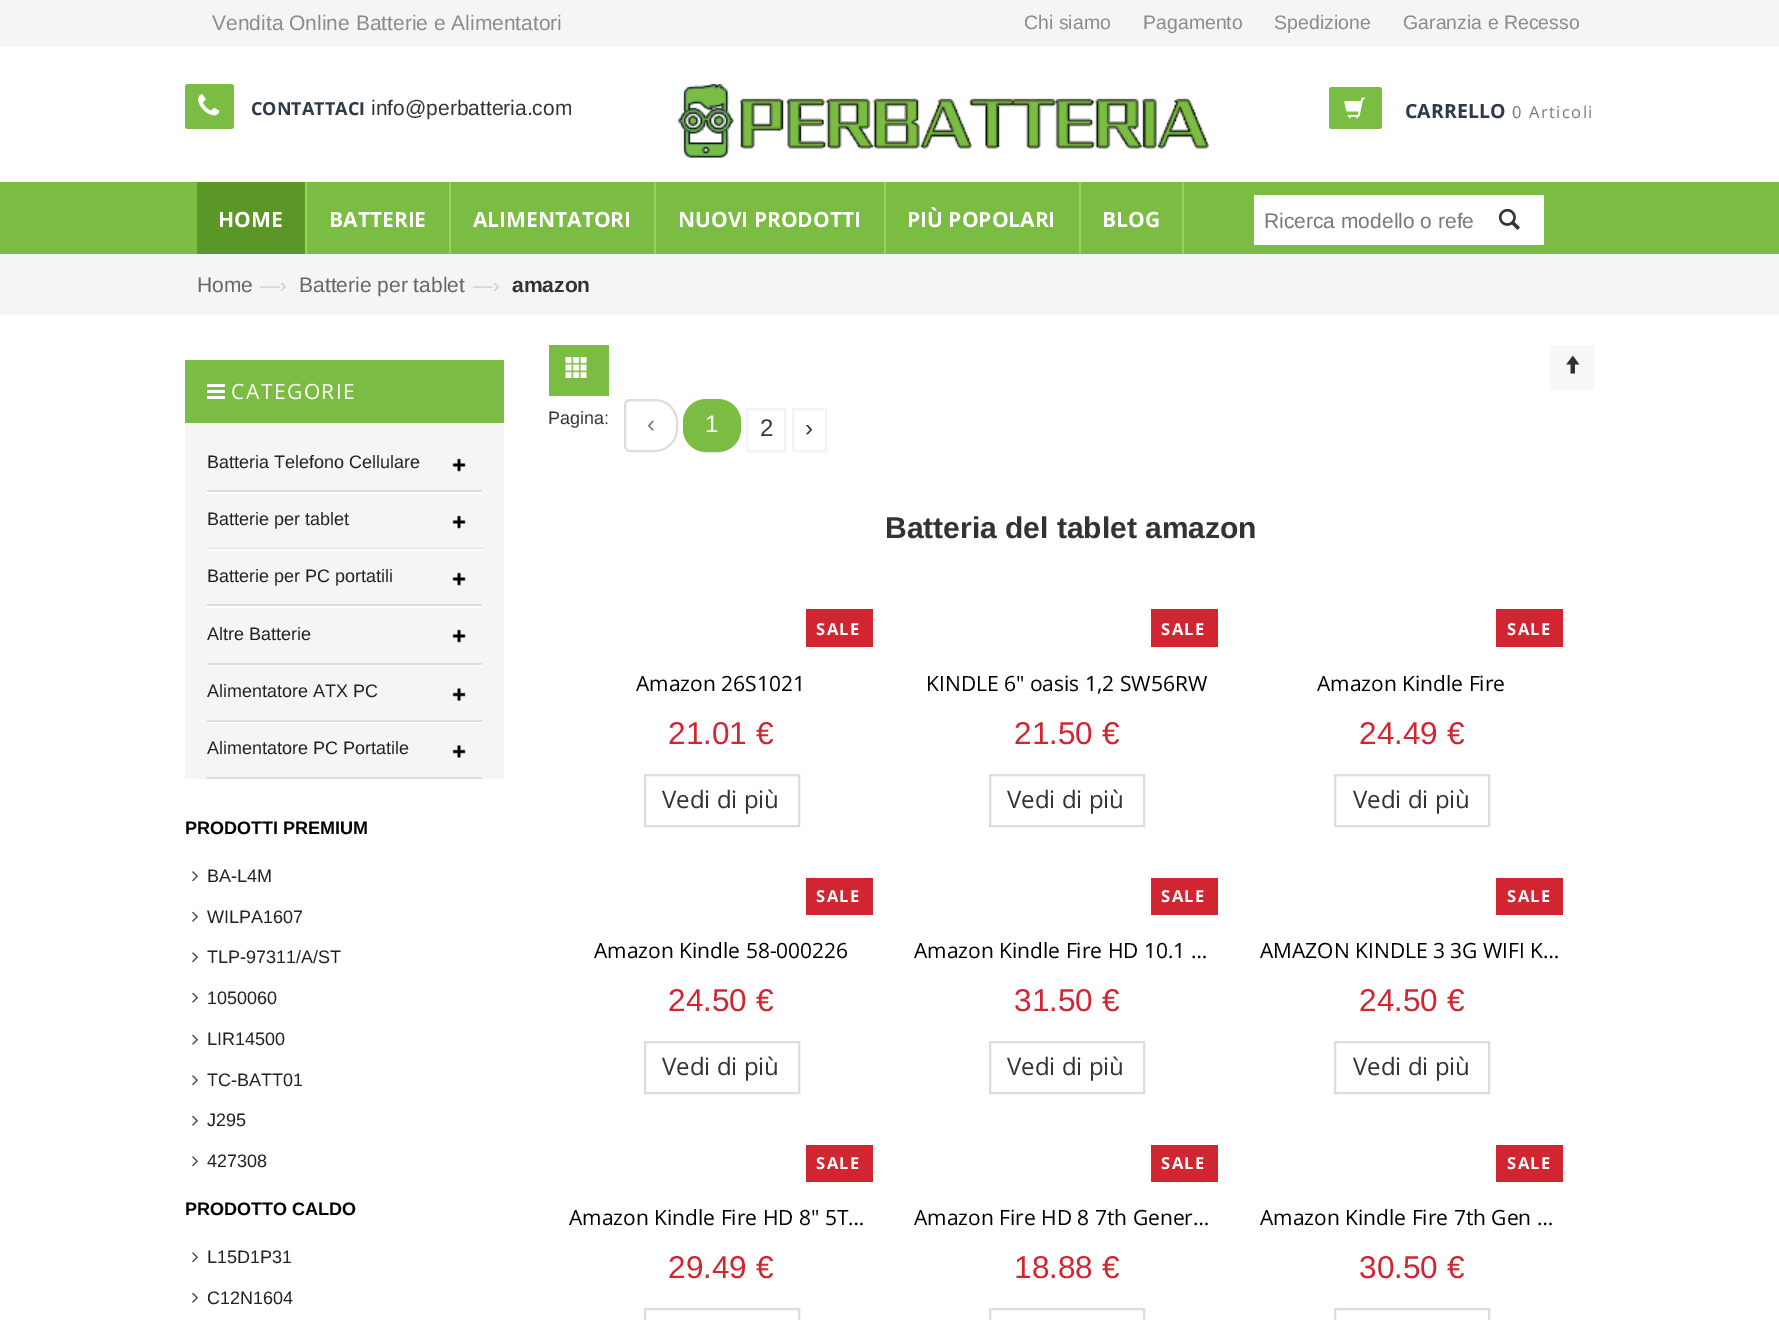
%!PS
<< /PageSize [1779 1320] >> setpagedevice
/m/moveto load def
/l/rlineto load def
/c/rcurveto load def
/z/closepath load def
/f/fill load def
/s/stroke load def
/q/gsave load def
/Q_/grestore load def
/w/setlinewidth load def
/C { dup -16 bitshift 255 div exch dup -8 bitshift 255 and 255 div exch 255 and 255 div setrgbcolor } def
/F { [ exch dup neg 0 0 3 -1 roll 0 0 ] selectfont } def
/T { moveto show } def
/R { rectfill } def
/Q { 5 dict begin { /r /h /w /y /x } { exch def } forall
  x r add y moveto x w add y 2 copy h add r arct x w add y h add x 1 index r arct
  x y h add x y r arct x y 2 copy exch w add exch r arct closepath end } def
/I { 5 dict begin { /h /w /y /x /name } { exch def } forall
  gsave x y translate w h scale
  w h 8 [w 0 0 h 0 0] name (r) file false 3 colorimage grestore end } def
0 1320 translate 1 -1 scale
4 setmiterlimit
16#FFFFFF C
0 0 1779 1320 R
16#F5F5F5 C
0 0 1779 47 R
/LiberationSans-Regular 21 F
16#8C8C8C C
(Vendita Online Batterie e Alimentatori) 212 30 T
/LiberationSans-Regular 19.5 F
(Chi siamo) 1024 29 T
(Pagamento) 1143 29 T
(Spedizione) 1274 29 T
(Garanzia e Recesso) 1403 29 T
16#7BBD42 C
185 84 49 45 3 Q f
(1.rgb) 198 94 22 22 I
/OpenSans-Bold 18 F
16#2E3A47 C
(CONTATTACI) 251 115 T
/LiberationSans-Regular 21 F
16#333333 C
(info@perbatteria.com) 371 115 T
(2.rgb) 677 84 532 74 I
16#7BBD42 C
1329 87 53 42 3 Q f
(3.rgb) 1344 97 21 22 I
/OpenSans-Bold 19.5 F
16#2E3A47 C
(CARRELLO) 1405 118 T
/OpenSans-Regular 16.5 F
16#777777 C
1512 118 m 1.5 0 (0 Articoli) ashow
16#7BBD42 C
0 182 1779 72 R
16#5B9726 C
197 182 108 72 R
16#92D756 C
305 182 2 72 R
/OpenSans-Bold 21 F
16#FFFFFF C
(HOME) 218 227 T
16#92D756 C
449 182 2 72 R
16#FFFFFF C
(BATTERIE) 329 227 T
16#92D756 C
654 182 2 72 R
16#FFFFFF C
(ALIMENTATORI) 473 227 T
16#92D756 C
884 182 2 72 R
16#FFFFFF C
(NUOVI PRODOTTI) 678 227 T
16#92D756 C
1079 182 2 72 R
16#FFFFFF C
(PIÙ POPOLARI) 907 227 T
16#92D756 C
1182 182 2 72 R
16#FFFFFF C
(BLOG) 1102 227 T
1254 195 290 50 R
/LiberationSans-Regular 21 F
16#777777 C
(Ricerca modello o refe) 1264 228 T
(4.rgb) 1498 208 22 22 I
16#F5F5F5 C
0 254 1779 61 R
16#666666 C
(Home) 197 292 T
/LiberationSans-Regular 19.5 F
16#CCCCCC C
(—›) 260 292 T
/LiberationSans-Regular 21 F
16#666666 C
(Batterie per tablet) 299 292 T
/LiberationSans-Regular 19.5 F
16#CCCCCC C
(—›) 473 292 T
/LiberationSans-Bold 21 F
16#333333 C
(amazon) 512 292 T
16#F5F5F5 C
185 423 319 356 R
16#7BBD42 C
185 360 319 63 R
(5.rgb) 207 384 18 15 I
/OpenSans-Regular 21 F
16#FFFFFF C
231 399 m 1.5 0 (CATEGORIE) ashow
207 490 m 0 4 l 275 0 l 0 -56 l 0 52 l z f
16#DDDDDD C
207 490 m 0 2 l 275 0 l 0 -55 l 0 53 l z f
/LiberationSans-Regular 18 F
16#222222 C
(Batteria Telefono Cellulare) 207 468 T
(6.rgb) 452 458 14 14 I
16#FFFFFF C
207 548 m 0 3 l 275 0 l 0 -56 l 0 53 l z f
16#DDDDDD C
207 548 m 0 1 l 275 0 l 0 -55 l 0 54 l z f
16#222222 C
(Batterie per tablet) 207 525 T
(6.rgb) 452 515 14 14 I
16#FFFFFF C
207 604 m 0 4 l 275 0 l 0 -56 l 0 52 l z f
16#DDDDDD C
207 604 m 0 2 l 275 0 l 0 -55 l 0 53 l z f
16#222222 C
(Batterie per PC portatili) 207 582 T
(6.rgb) 452 572 14 14 I
16#FFFFFF C
207 663 m 0 3 l 275 0 l 0 -57 l 0 54 l z f
16#DDDDDD C
207 663 m 0 2 l 275 0 l 0 -57 l 0 55 l z f
16#222222 C
(Altre Batterie) 207 640 T
(6.rgb) 452 629 14 14 I
16#FFFFFF C
207 720 m 0 3 l 275 0 l 0 -55 l 0 52 l z f
16#DDDDDD C
207 720 m 0 2 l 275 0 l 0 -56 l 0 54 l z f
16#222222 C
(Alimentatore ATX PC) 207 697 T
(7.rgb) 452 688 14 13 I
16#FFFFFF C
207 777 m 0 3 l 275 0 l 0 -55 l 0 52 l z f
16#DDDDDD C
207 777 m 0 2 l 275 0 l 0 -56 l 0 54 l z f
16#222222 C
(Alimentatore PC Portatile) 207 754 T
(7.rgb) 452 745 14 13 I
/LiberationSans-Bold 18 F
16#000000 C
(PRODOTTI PREMIUM) 185 834 T
(8.rgb) 192 871 6 11 I
/LiberationSans-Regular 18 F
16#222222 C
(BA-L4M) 207 882 T
(9.rgb) 192 911 6 11 I
(WILPA1607) 207 923 T
(8.rgb) 192 952 6 11 I
(TLP-97311/A/ST) 207 963 T
(9.rgb) 192 992 6 11 I
(1050060) 207 1004 T
(9.rgb) 192 1034 6 11 I
(LIR14500) 207 1045 T
(8.rgb) 192 1075 6 11 I
(TC-BATT01) 207 1086 T
(9.rgb) 192 1115 6 11 I
(J295) 207 1126 T
(8.rgb) 192 1156 6 11 I
(427308) 207 1167 T
/LiberationSans-Bold 18 F
16#000000 C
(PRODOTTO CALDO) 185 1215 T
(8.rgb) 192 1252 6 11 I
/LiberationSans-Regular 18 F
16#222222 C
(L15D1P31) 207 1263 T
(9.rgb) 192 1292 6 11 I
(C12N1604) 207 1304 T
16#7BBD42 C
549 345 60 51 R
(10.rgb) 565 357 22 21 I
16#F8F8F8 C
1550 345 45 45 R
(11.rgb) 1566 355 14 19 I
16#333333 C
(Pagina:) 548 424 T
16#DDDDDD C
2 w
630 400 m 25 0 l 12 0 22 10 22 22 c 0 7 l 0 12 -10 22 -22 22 c -25 0 l -3 0 -5 -2 -5 -5 c 0 -41 l 0 -3 2 -5 5 -5 c z s
/LiberationSans-Regular 24 F
16#777777 C
(‹) 647 432 T
16#7BBD42 C
684 400 56 51 22 Q q f Q_
s
16#FFFFFF C
(1) 705 432 T
16#F3F3F3 C
747 409 38 42 rectstroke
16#333333 C
(2) 760 436 T
16#F3F3F3 C
793 409 33 42 rectstroke
16#333333 C
(›) 805 436 T
/LiberationSans-Bold 30 F
(Batteria del tablet amazon) 885 538 T
16#D12631 C
806 609 67 38 R
/OpenSans-Bold 16.5 F
16#FFFFFF C
816 635 m 1.5 0 (SALE) ashow
/OpenSans-Regular 21 F
16#000000 C
(Amazon 26S1021) 636 691 T
/LiberationSans-Regular 31.5 F
16#D12631 C
(21.01 €) 668 744 T
16#DDDDDD C
645 775 154 51 rectstroke
/OpenSans-Regular 24 F
16#333333 C
(Vedi di più) 662 808 T
16#D12631 C
1151 609 67 38 R
/OpenSans-Bold 16.5 F
16#FFFFFF C
1161 635 m 1.5 0 (SALE) ashow
/OpenSans-Regular 21 F
16#000000 C
(KINDLE 6" oasis 1,2 SW56RW) 926 691 T
/LiberationSans-Regular 31.5 F
16#D12631 C
(21.50 €) 1014 744 T
16#DDDDDD C
990 775 154 51 rectstroke
/OpenSans-Regular 24 F
16#333333 C
(Vedi di più) 1007 808 T
16#D12631 C
1496 609 67 38 R
/OpenSans-Bold 16.5 F
16#FFFFFF C
1507 635 m 1.5 0 (SALE) ashow
/OpenSans-Regular 21 F
16#000000 C
(Amazon Kindle Fire) 1317 691 T
/LiberationSans-Regular 31.5 F
16#D12631 C
(24.49 €) 1359 744 T
16#DDDDDD C
1335 775 154 51 rectstroke
/OpenSans-Regular 24 F
16#333333 C
(Vedi di più) 1353 808 T
16#D12631 C
806 878 67 37 R
/OpenSans-Bold 16.5 F
16#FFFFFF C
816 902 m 1.5 0 (SALE) ashow
/OpenSans-Regular 21 F
16#000000 C
(Amazon Kindle 58-000226) 594 958 T
/LiberationSans-Regular 31.5 F
16#D12631 C
(24.50 €) 668 1011 T
16#DDDDDD C
645 1042 154 51 rectstroke
/OpenSans-Regular 24 F
16#333333 C
(Vedi di più) 662 1075 T
16#D12631 C
1151 878 67 37 R
/OpenSans-Bold 16.5 F
16#FFFFFF C
1161 902 m 1.5 0 (SALE) ashow
/OpenSans-Regular 21 F
16#000000 C
(Amazon Kindle Fire HD 10.1 …) 914 958 T
/LiberationSans-Regular 31.5 F
16#D12631 C
(31.50 €) 1014 1011 T
16#DDDDDD C
990 1042 154 51 rectstroke
/OpenSans-Regular 24 F
16#333333 C
(Vedi di più) 1007 1075 T
16#D12631 C
1496 878 67 37 R
/OpenSans-Bold 16.5 F
16#FFFFFF C
1507 902 m 1.5 0 (SALE) ashow
/OpenSans-Regular 21 F
16#000000 C
(AMAZON KINDLE 3 3G WIFI K…) 1260 958 T
/LiberationSans-Regular 31.5 F
16#D12631 C
(24.50 €) 1359 1011 T
16#DDDDDD C
1335 1042 154 51 rectstroke
/OpenSans-Regular 24 F
16#333333 C
(Vedi di più) 1353 1075 T
16#D12631 C
806 1145 67 37 R
/OpenSans-Bold 16.5 F
16#FFFFFF C
816 1169 m 1.5 0 (SALE) ashow
/OpenSans-Regular 21 F
16#000000 C
(Amazon Kindle Fire HD 8" 5T…) 569 1225 T
/LiberationSans-Regular 31.5 F
16#D12631 C
(29.49 €) 668 1278 T
16#DDDDDD C
645 1309 154 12 rectstroke
16#D12631 C
1151 1145 67 37 R
/OpenSans-Bold 16.5 F
16#FFFFFF C
1161 1169 m 1.5 0 (SALE) ashow
/OpenSans-Regular 21 F
16#000000 C
(Amazon Fire HD 8 7th Gener…) 914 1225 T
/LiberationSans-Regular 31.5 F
16#D12631 C
(18.88 €) 1014 1278 T
16#DDDDDD C
990 1309 154 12 rectstroke
16#D12631 C
1496 1145 67 37 R
/OpenSans-Bold 16.5 F
16#FFFFFF C
1507 1169 m 1.5 0 (SALE) ashow
/OpenSans-Regular 21 F
16#000000 C
(Amazon Kindle Fire 7th Gen …) 1260 1225 T
/LiberationSans-Regular 31.5 F
16#D12631 C
(30.50 €) 1359 1278 T
16#DDDDDD C
1335 1309 154 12 rectstroke
showpage
